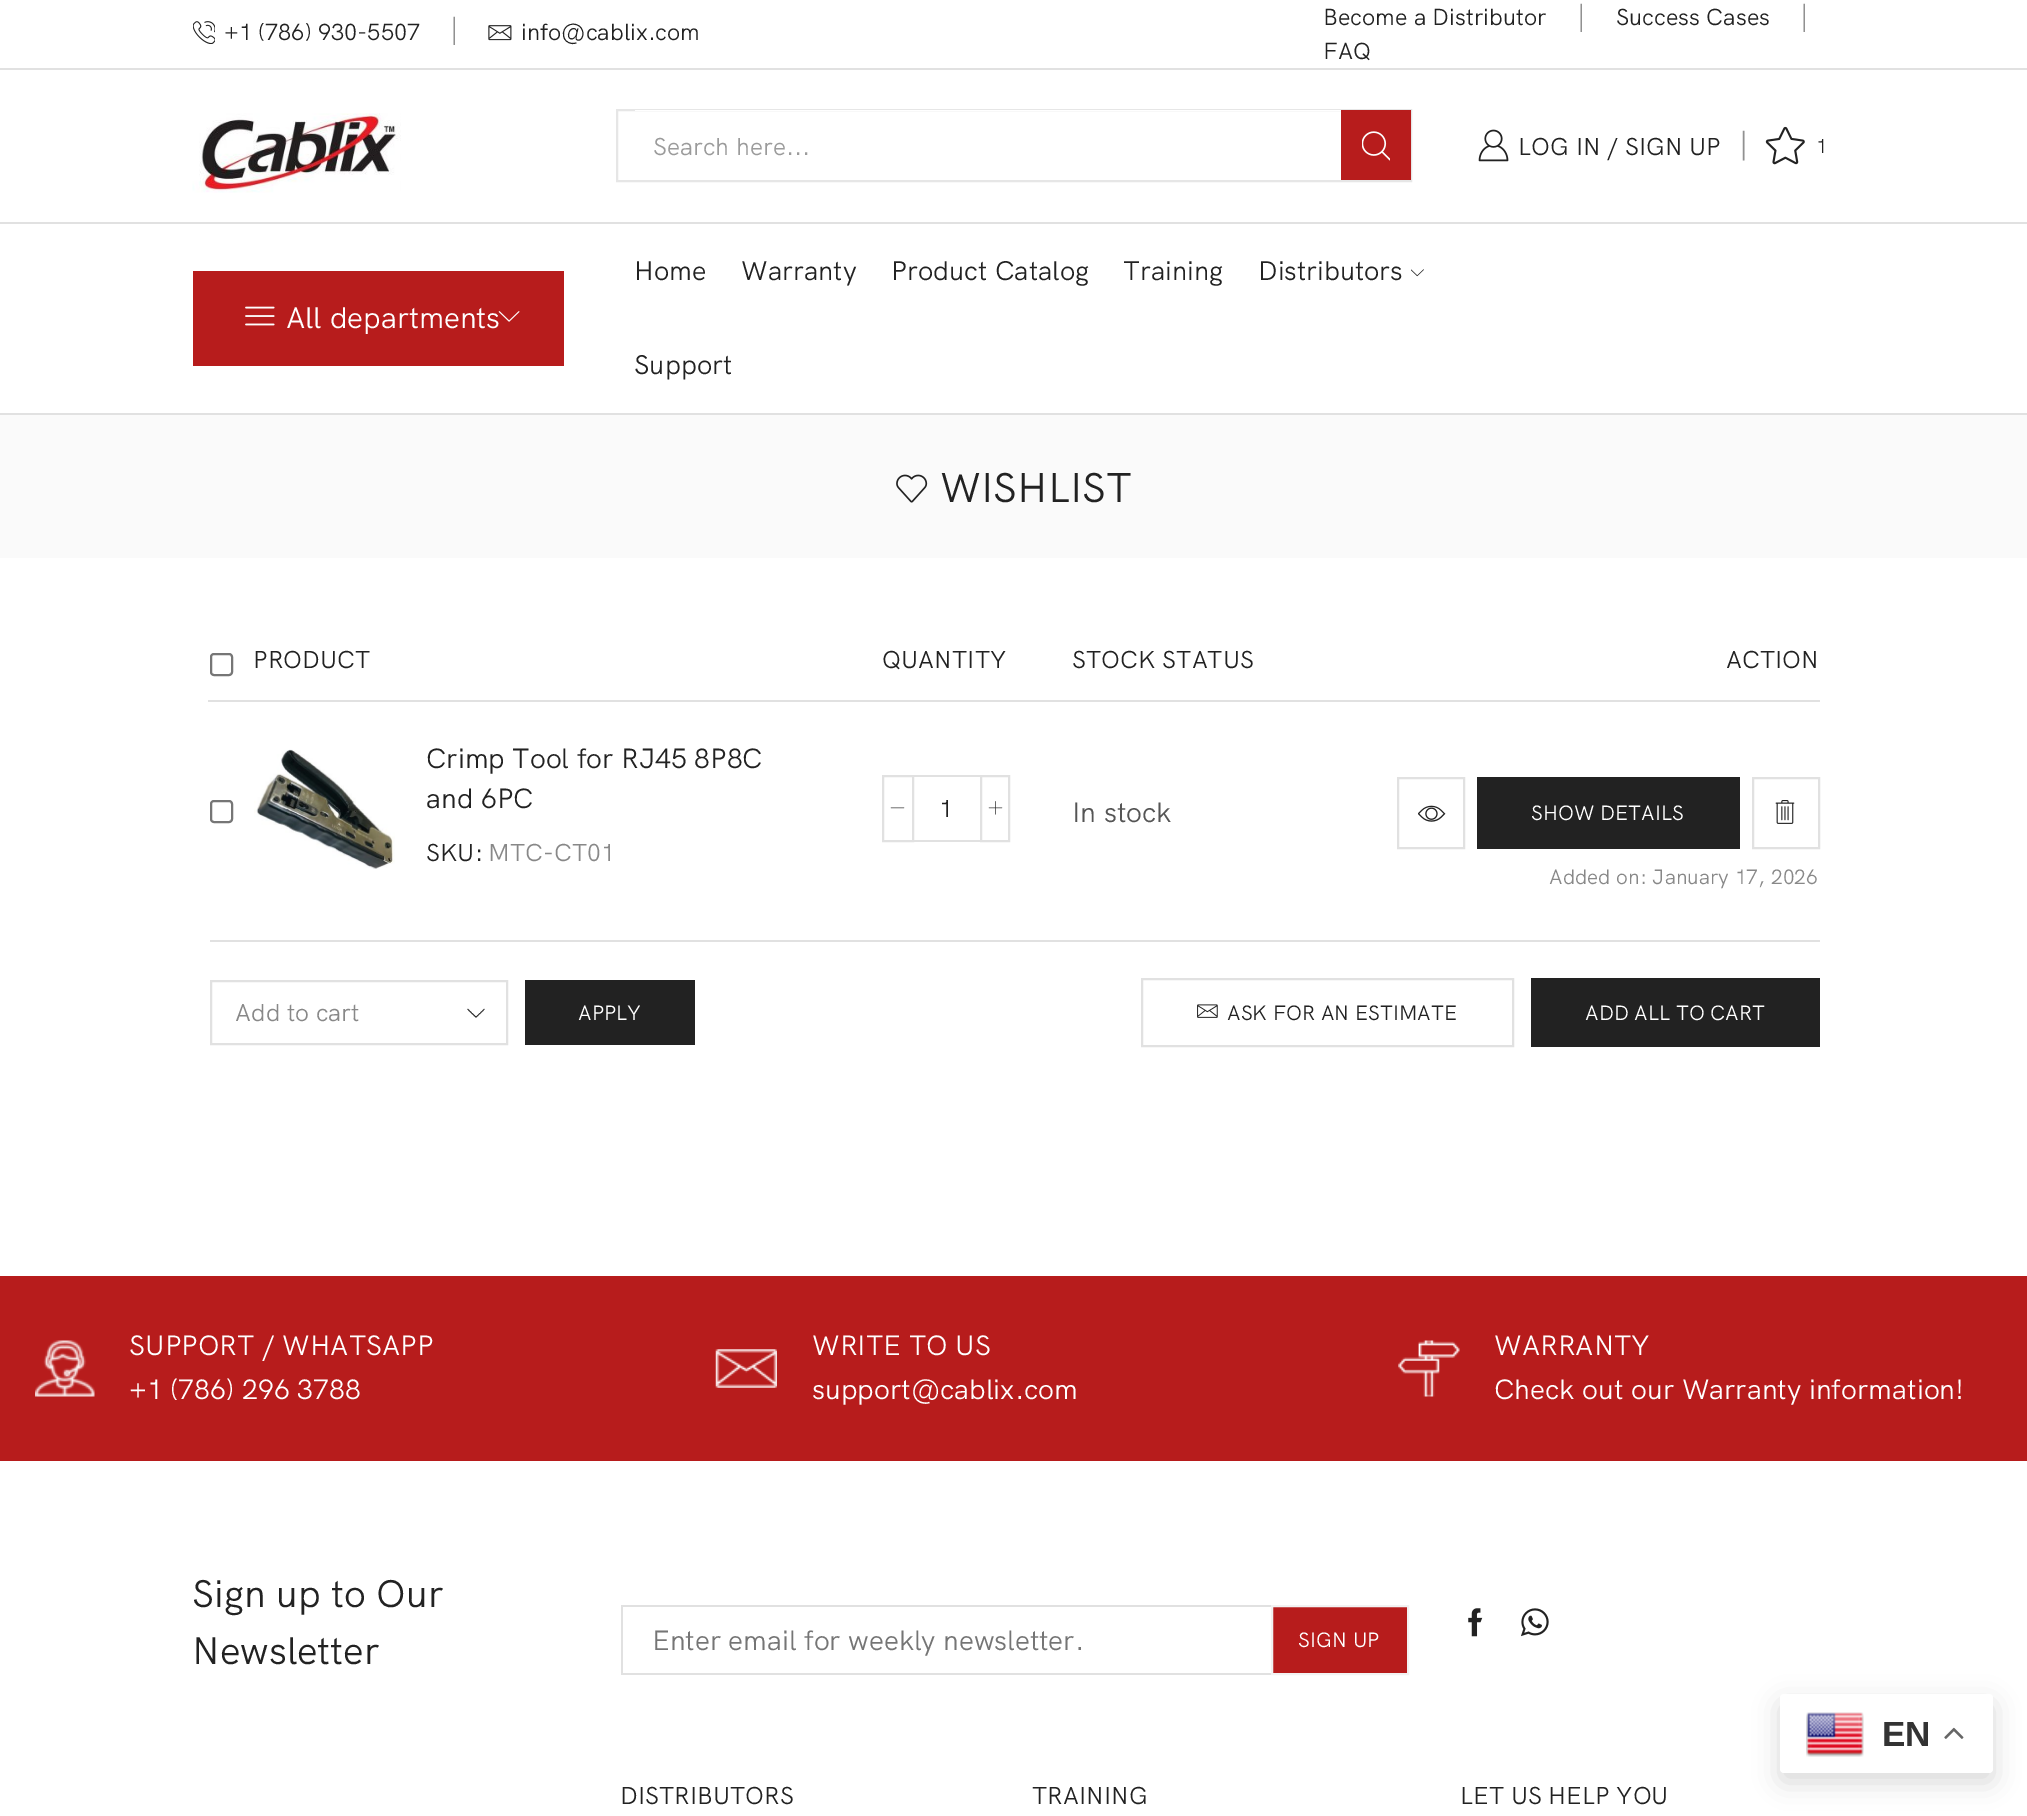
%!PS
<< /PageSize [2027 1816] /PageUsesTransparency true >> setpagedevice
/m/moveto load def
/l/rlineto load def
/z/closepath load def
/f/fill load def
/s/stroke load def
/q/gsave load def
/Q_/grestore load def
/w/setlinewidth load def
/C { dup -16 bitshift 255 div exch dup -8 bitshift 255 and 255 div exch 255 and 255 div setrgbcolor } def
/F { [ exch dup neg 0 0 3 -1 roll 0 0 ] selectfont } def
/T { moveto show } def
/R { rectfill } def
/A { dup .setfillconstantalpha .setstrokeconstantalpha } def
/Q { 5 dict begin { /r /h /w /y /x } { exch def } forall
  x r add y moveto x w add y 2 copy h add r arct x w add y h add x 1 index r arct
  x y h add x y r arct x y 2 copy exch w add exch r arct closepath end } def
/S { 12 dict begin { /a /b /q /h /w /y /x } { exch def } forall gsave /was 0 def
  9 -2 -9 { dup b mul 4 div /e exch def 1 sub .425 mul 2.718 exch exp 1 add a .99 .min exch div /now exch def
    1 1 now sub 1 was sub div sub A /was now def
    w h .min e 2 mul add 0 gt { x e sub y e sub w e 2 mul add h e 2 mul add
      q e add b .6 mul add w h .min 2 div e add .min 0 .max Q fill } if } for grestore end } def
/I { 5 dict begin { /h /w /y /x /name } { exch def } forall
  gsave x y translate w h scale
  w h 8 [w 0 0 h 0 0] name (r) file false 3 colorimage grestore end } def
0 .pushpdf14devicefilter
0 1816 translate 1 -1 scale
4 setmiterlimit
16#FFFFFF C
0 0 2027 1816 R
16#E1E1E1 C
0 68 2027 2 R
(1.rgb) 193 21 22 23 I
/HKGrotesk-Regular 23.25 F
16#222222 C
(+1 \(786\) 930-5507) 224 40 T
/LiberationSerif-Regular 23.25 F
16#919191 C
(│) 446 38 T
(2.rgb) 488 25 24 16 I
/HKGrotesk-Regular 23.25 F
16#222222 C
(info@cablix.com) 521 40 T
(Become a Distributor) 1323 25 T
/LiberationSerif-Regular 23.25 F
16#919191 C
(│) 1573 25 T
/HKGrotesk-Regular 23.25 F
16#222222 C
(Success Cases) 1616 25 T
/LiberationSerif-Regular 23.25 F
16#919191 C
(│) 1796 25 T
/HKGrotesk-Regular 23.25 F
16#222222 C
(FAQ) 1323 59 T
(3.rgb) 192 113 209 80 I
16#E6E6E6 C
2 w
617 110 794 71 rectstroke
16#FFFFFF C
635 110 706 1 R
/HKGrotesk-Regular 24.5 F
16#9B9B9B C
(Search here...) 653 155 T
16#B71C1C C
1341 110 70 70 R
(4.rgb) 1362 131 28 30 I
(5.rgb) 1478 129 31 33 I
16#222222 C
(LOG IN / SIGN UP) 1518 155 T
/LiberationSerif-Regular 24.5 F
16#919191 C
(│) 1735 153 T
(6.rgb) 1765 126 40 39 I
/HKGrotesk-Regular 20 F
16#222222 C
(1) 1816 153 T
16#E1E1E1 C
0 222 2027 2 R
0 413 2027 2 R
16#B71C1C C
193 271 371 95 R
(7.rgb) 245 306 30 20 I
/HKGrotesk-Regular 29.75 F
16#FFFFFF C
(All departments) 286 328 T
(8.rgb) 498 311 22 11 I
/HKGrotesk-Regular 27 F
16#222222 C
(Home) 634 280 T
(Warranty) 741 280 T
(Product Catalog) 891 280 T
(Training) 1123 280 T
(Distributors) 1258 280 T
(9.rgb) 1411 269 13 8 I
(Support) 634 374 T
16#FAFAFA C
0 415 2027 143 R
(10.rgb) 896 474 32 29 I
/HKGrotesk-Regular 41.5 F
16#222222 C
(WISHLIST) 940 502 T
16#E1E1E1 C
208 700 1612 2 R
16#767676 C
211 654 21 21 3 Q s
/HKGrotesk-Regular 24.5 F
16#222222 C
(PRODUCT) 253 668 T
(QUANTITY) 882 668 T
(STOCK STATUS) 1072 668 T
(ACTION) 1726 668 T
16#767676 C
211 801 21 21 3 Q s
(11.rgb) 254 749 141 120 I
/HKGrotesk-Regular 27.9 F
16#222222 C
(Crimp Tool for RJ45 8P8C) 426 768 T
(and 6PC) 426 808 T
/HKGrotesk-Regular 24.5 F
(SKU:) 426 861 T
16#888888 C
(MTC-CT01) 488 861 T
16#E1E1E1 C
883 776 30 65 rectstroke
(12.rgb) 890 807 15 2 I
914 775 66 2 R
914 840 66 2 R
16#222222 C
(1) 939 817 T
16#E1E1E1 C
981 776 28 65 rectstroke
(13.rgb) 988 801 15 14 I
/HKGrotesk-Regular 28 F
16#555555 C
(In stock) 1072 822 T
16#E1E1E1 C
1398 778 66 70 rectstroke
(14.rgb) 1418 805 28 17 I
16#222222 C
1477 777 263 72 R
/HKGrotesk-Regular 20.75 F
16#FFFFFF C
(SHOW DETAILS) 1531 820 T
16#E1E1E1 C
1753 778 66 70 rectstroke
(15.rgb) 1775 800 20 24 I
16#888888 C
(Added on: January 17, 2026) 1549 884 T
16#E1E1E1 C
210 940 1610 2 R
(16.rgb) 467 1008 18 10 I
211 981 296 63 rectstroke
/HKGrotesk-Regular 24.5 F
16#888888 C
(Add to cart) 235 1021 T
16#222222 C
525 980 170 65 R
/HKGrotesk-Regular 20.75 F
16#FFFFFF C
(APPLY) 578 1020 T
16#E1E1E1 C
1142 979 371 67 rectstroke
(17.rgb) 1197 1004 21 14 I
16#222222 C
(ASK FOR AN ESTIMATE) 1227 1020 T
1531 978 289 69 R
16#FFFFFF C
(ADD ALL TO CART) 1585 1020 T
16#B71C1C C
0 1276 2027 185 R
(18.rgb) 35 1340 60 57 I
/HKGrotesk-Regular 28 F
16#FFFFFF C
(SUPPORT / WHATSAPP) 129 1355 T
(+1 \(786\) 296 3788) 129 1399 T
(19.rgb) 715 1349 62 39 I
(WRITE TO US) 812 1355 T
(support@cablix.com) 812 1399 T
(20.rgb) 1398 1340 62 57 I
(WARRANTY) 1494 1355 T
(Check out our Warranty information!) 1494 1399 T
/HKGrotesk-Regular 38.5 F
16#222222 C
(Sign up to Our) 192 1607 T
(Newsletter) 192 1664 T
(21.rgb) 1468 1608 15 29 I
(22.rgb) 1521 1608 28 29 I
16#E1E1E1 C
621 1605 650 2 R
621 1673 650 2 R
621 1605 2 70 R
/HKGrotesk-Regular 27.9 F
16#757575 C
(Enter email for weekly newsletter.) 652 1650 T
16#B71C1C C
1272 1606 m 136 0 l 0 68 l -136 0 l z q f Q_
16#F2F2F2 C
s
/HKGrotesk-Regular 20.75 F
16#FFFFFF C
(SIGN UP) 1298 1647 T
/HKGrotesk-Regular 24.5 F
16#222222 C
(DISTRIBUTORS) 620 1804 T
(TRAINING) 1032 1804 T
(LET US HELP YOU) 1460 1804 T
16#000000 C
1780 1703 213 79 4 13 .15 S
16#FFFFFF C
1780 1694 213 79 4 Q f
(23.rgb) 1806 1712 58 45 I
/LiberationSans-Bold 35 F
16#333333 C
(EN) 1882 1746 T
(24.rgb) 1944 1727 20 12 I
.poppdf14devicefilter showpage
